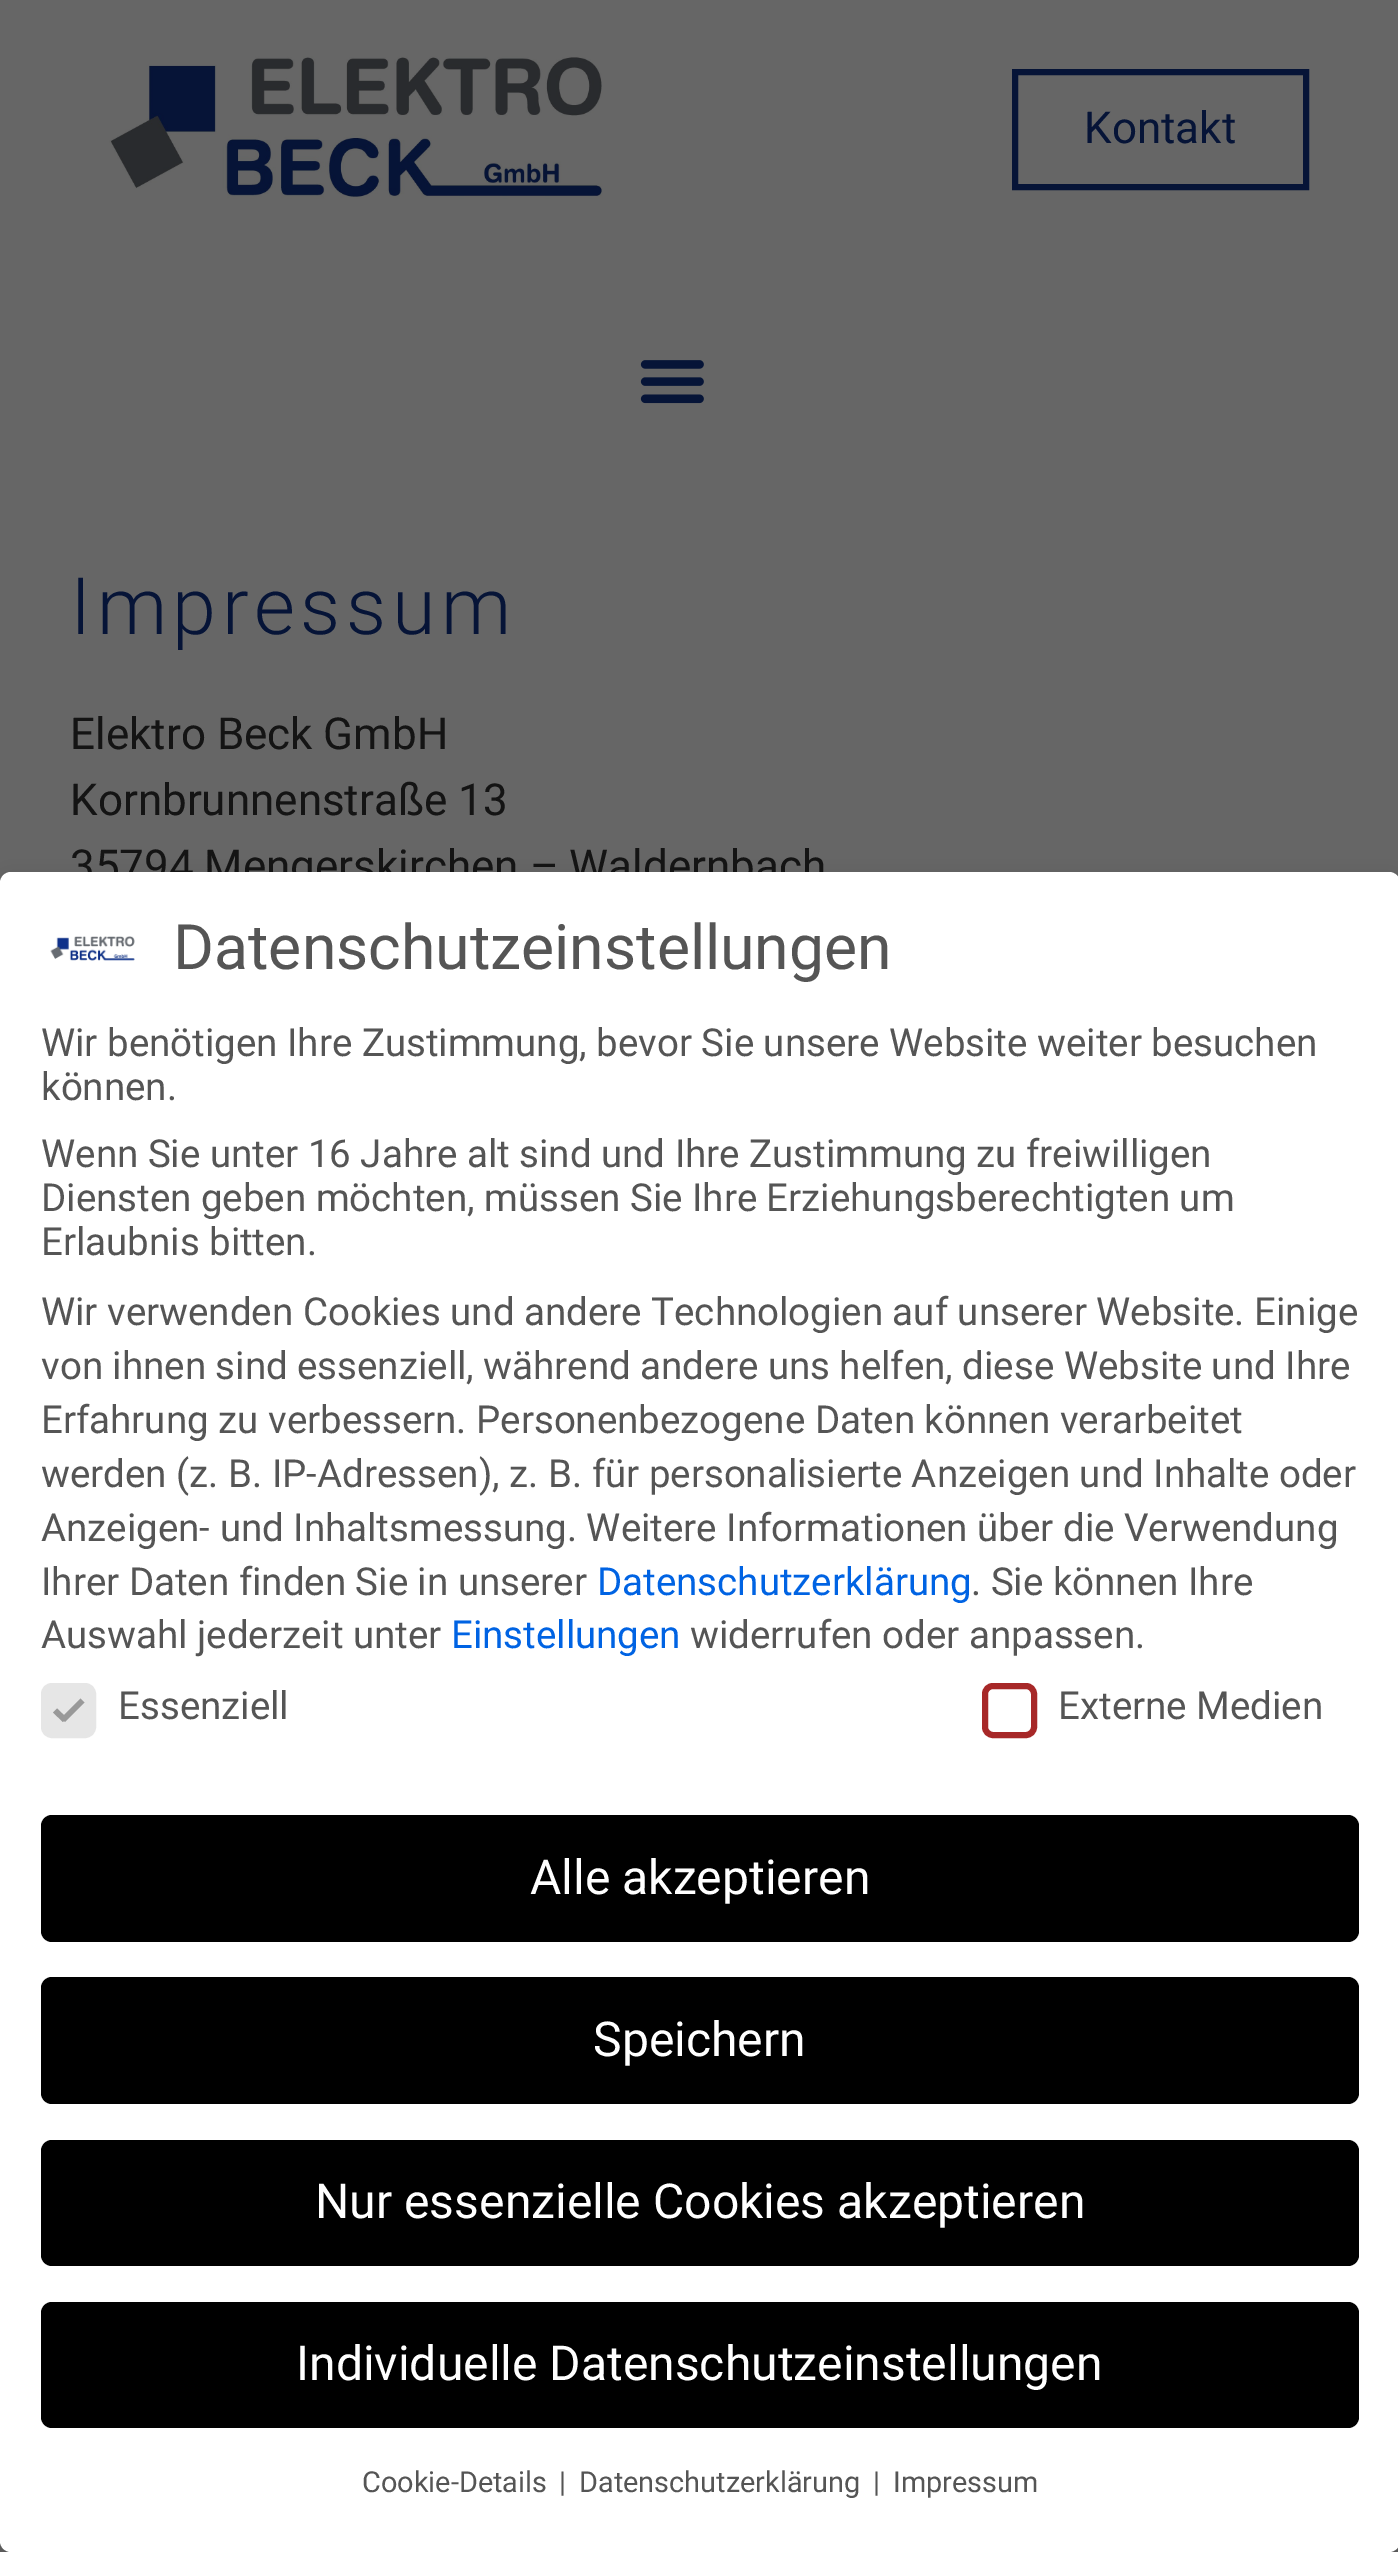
%!PS
<< /PageSize [1398 2552] /PageUsesTransparency true >> setpagedevice
/m/moveto load def
/l/rlineto load def
/z/closepath load def
/f/fill load def
/s/stroke load def
/q/gsave load def
/Q_/grestore load def
/w/setlinewidth load def
/C { dup -16 bitshift 255 div exch dup -8 bitshift 255 and 255 div exch 255 and 255 div setrgbcolor } def
/F { [ exch dup neg 0 0 3 -1 roll 0 0 ] selectfont } def
/T { moveto show } def
/R { rectfill } def
/A { dup .setfillconstantalpha .setstrokeconstantalpha } def
/Q { 5 dict begin { /r /h /w /y /x } { exch def } forall
  x r add y moveto x w add y 2 copy h add r arct x w add y h add x 1 index r arct
  x y h add x y r arct x y 2 copy exch w add exch r arct closepath end } def
/S { 12 dict begin { /a /b /q /h /w /y /x } { exch def } forall gsave /was 0 def
  9 -2 -9 { dup b mul 4 div /e exch def 1 sub .425 mul 2.718 exch exp 1 add a .99 .min exch div /now exch def
    1 1 now sub 1 was sub div sub A /was now def
    w h .min e 2 mul add 0 gt { x e sub y e sub w e 2 mul add h e 2 mul add
      q e add b .6 mul add w h .min 2 div e add .min 0 .max Q fill } if } for grestore end } def
/I { 5 dict begin { /h /w /y /x /name } { exch def } forall
  gsave x y translate w h scale
  w h 8 [w 0 0 h 0 0] name (r) file false 3 colorimage grestore end } def
0 .pushpdf14devicefilter
0 2552 translate 1 -1 scale
4 setmiterlimit
16#666666 C
0 0 1398 2552 R
(1.rgb) 109 56 494 143 I
16#061437 C
6 w
1015 72 291 115 rectstroke
/Roboto-Regular 44 F
(Kontakt) 1084 143 T
(2.rgb) 640 360 64 44 I
/Roboto-Light 79.25 F
70 634 m 5.5 0 (Impressum) ashow
/Roboto-Regular 44 F
16#141414 C
(Elektro Beck GmbH) 70 749 T
(Kornbrunnenstraße 13) 70 815 T
(35794 Mengerskirchen – Waldernbach) 70 881 T
16#000000 C
0 883 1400 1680 11 11 .2 S
16#FFFFFF C
0 872 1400 1680 11 Q f
(3.rgb) 50 936 85 25 I
/Roboto-Regular 62.5 F
16#555555 C
(Datenschutzeinstellungen) 173 969 T
/Roboto-Regular 38.5 F
(Wir benötigen Ihre Zustimmung, bevor Sie unsere Website weiter besuchen) 41 1056 T
(können.) 41 1100 T
(Wenn Sie unter 16 Jahre alt sind und Ihre Zustimmung zu freiwilligen) 41 1167 T
(Diensten geben möchten, müssen Sie Ihre Erziehungsberechtigten um) 41 1211 T
(Erlaubnis bitten.) 41 1255 T
(Wir verwenden Cookies und andere Technologien auf unserer Website. Einige) 41 1325 T
(von ihnen sind essenziell, während andere uns helfen, diese Website und Ihre) 41 1379 T
(Erfahrung zu verbessern. Personenbezogene Daten können verarbeitet) 41 1433 T
(werden \(z. B. IP-Adressen\), z. B. für personalisierte Anzeigen und Inhalte oder) 41 1487 T
(Anzeigen- und Inhaltsmessung. Weitere Informationen über die Verwendung) 41 1541 T
(Ihrer Daten finden Sie in unserer) 41 1595 T
16#0063E3 C
(Datenschutzerklärung) 597 1595 T
16#555555 C
(. Sie können Ihre) 971 1595 T
(Auswahl jederzeit unter) 41 1648 T
16#0063E3 C
(Einstellungen) 451 1648 T
16#555555 C
(widerrufen oder anpassen.) 690 1648 T
16#E6E6E6 C
44 1686 49 49 8 Q q f Q_
s
16#999999 C
80.5 1698.5 m 4 4 l -19.5 19.5 l -4 -4 l z f
57 1708.5 m 10 9.5 l -4 4 l -10 -9.5 l z f
16#555555 C
(Essenziell) 118 1719 T
16#A72828 C
985 1686 49 49 8 Q s
16#555555 C
(Externe Medien) 1058 1719 T
16#000000 C
41 1815 1318 127 11 Q f
/Roboto-Regular 48.1 F
16#FFFFFF C
(Alle akzeptieren) 530 1894 T
16#000000 C
41 1977 1318 127 11 Q f
16#FFFFFF C
(Speichern) 593 2056 T
16#000000 C
41 2140 1318 126 11 Q f
16#FFFFFF C
(Nur essenzielle Cookies akzeptieren) 315 2218 T
16#000000 C
41 2302 1318 126 11 Q f
16#FFFFFF C
(Individuelle Datenschutzeinstellungen) 296 2380 T
/Roboto-Regular 28.9 F
16#555555 C
(Cookie-Details) 362 2492 T
(|) 559 2492 T
(Datenschutzerklärung) 579 2492 T
(|) 873 2492 T
(Impressum) 893 2492 T
.poppdf14devicefilter showpage
